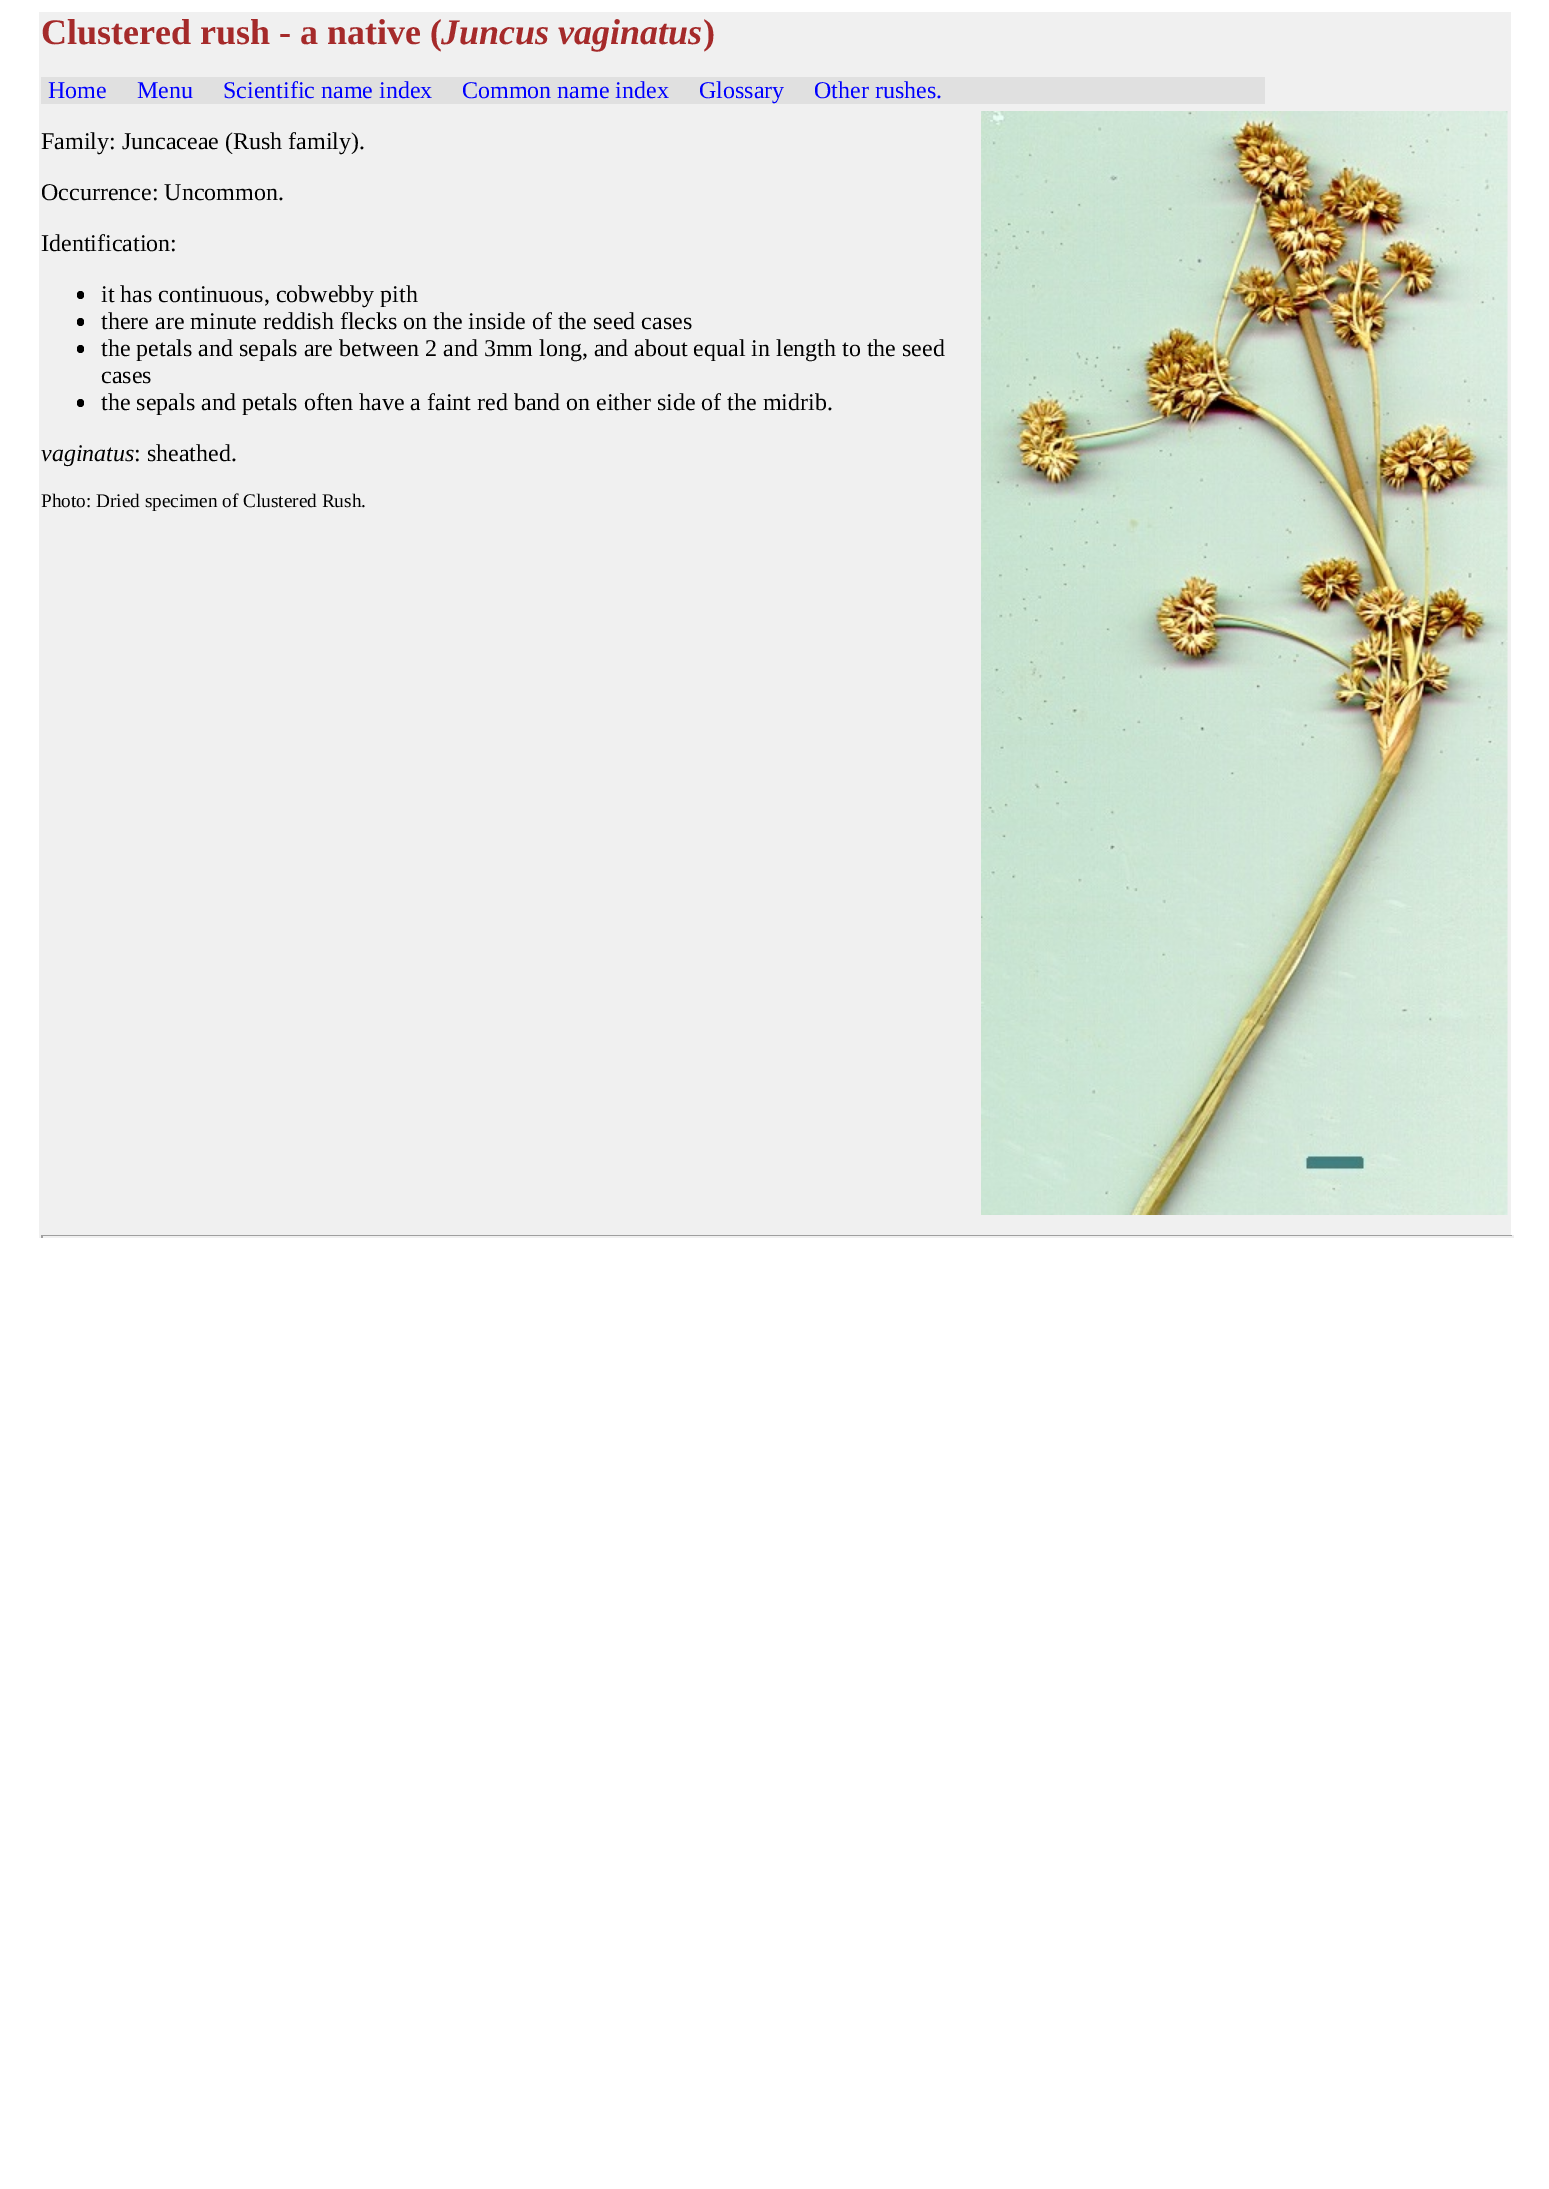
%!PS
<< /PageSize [1549 2189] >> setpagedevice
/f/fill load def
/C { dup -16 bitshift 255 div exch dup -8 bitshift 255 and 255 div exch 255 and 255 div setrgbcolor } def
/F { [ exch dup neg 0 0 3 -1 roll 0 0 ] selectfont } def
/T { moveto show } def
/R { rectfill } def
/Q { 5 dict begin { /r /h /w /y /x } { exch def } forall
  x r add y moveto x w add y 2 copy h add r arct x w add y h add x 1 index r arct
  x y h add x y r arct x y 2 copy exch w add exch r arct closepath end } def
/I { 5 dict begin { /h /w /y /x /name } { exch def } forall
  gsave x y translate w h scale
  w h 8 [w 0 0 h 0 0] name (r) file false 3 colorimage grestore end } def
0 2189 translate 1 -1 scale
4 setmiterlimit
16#FFFFFF C
0 0 1549 2189 R
16#F0F0F0 C
39 12 1472 1226 R
/LiberationSerif-Bold 36 F
16#A52A2A C
(Clustered rush - a native \() 41 44 T
/LiberationSerif-BoldItalic 36 F
(Juncus vaginatus) 441 44 T
/LiberationSerif-Bold 36 F
(\)) 703 44 T
16#E0E0E0 C
41 77 1224 27 R
/LiberationSerif-Regular 24 F
16#0000FF C
(Home) 48 98 T
(Menu) 137 98 T
(Scientific name index) 223 98 T
(Common name index) 462 98 T
(Glossary) 699 98 T
(Other rushes.) 814 98 T
16#000000 C
(Family: Juncaceae \(Rush family\).) 41 149 T
(1.rgb) 981 111 527 1104 I
(Occurrence: Uncommon.) 41 200 T
(Identification:) 41 251 T
77 291 7 8 3.5 Q f
(it has continuous, cobwebby pith) 101 302 T
77 318 7 8 3.5 Q f
(there are minute reddish flecks on the inside of the seed cases) 101 329 T
77 345 7 8 3.5 Q f
(the petals and sepals are between 2 and 3mm long, and about equal in length to the seed) 101 356 T
(cases) 101 383 T
77 399 7 8 3.5 Q f
(the sepals and petals often have a faint red band on either side of the midrib.) 101 410 T
/LiberationSerif-Italic 24 F
(vaginatus) 41 461 T
/LiberationSerif-Regular 24 F
(: sheathed.) 134 461 T
/LiberationSerif-Regular 19.25 F
(Photo: Dried specimen of Clustered Rush.) 41 507 T
16#9F9F9F C
41 1235 1473 1 R
16#EEEEEE C
1512 1235 2 3 R
1511 1236 3 2 R
16#9F9F9F C
41 1235 2 3 R
showpage
